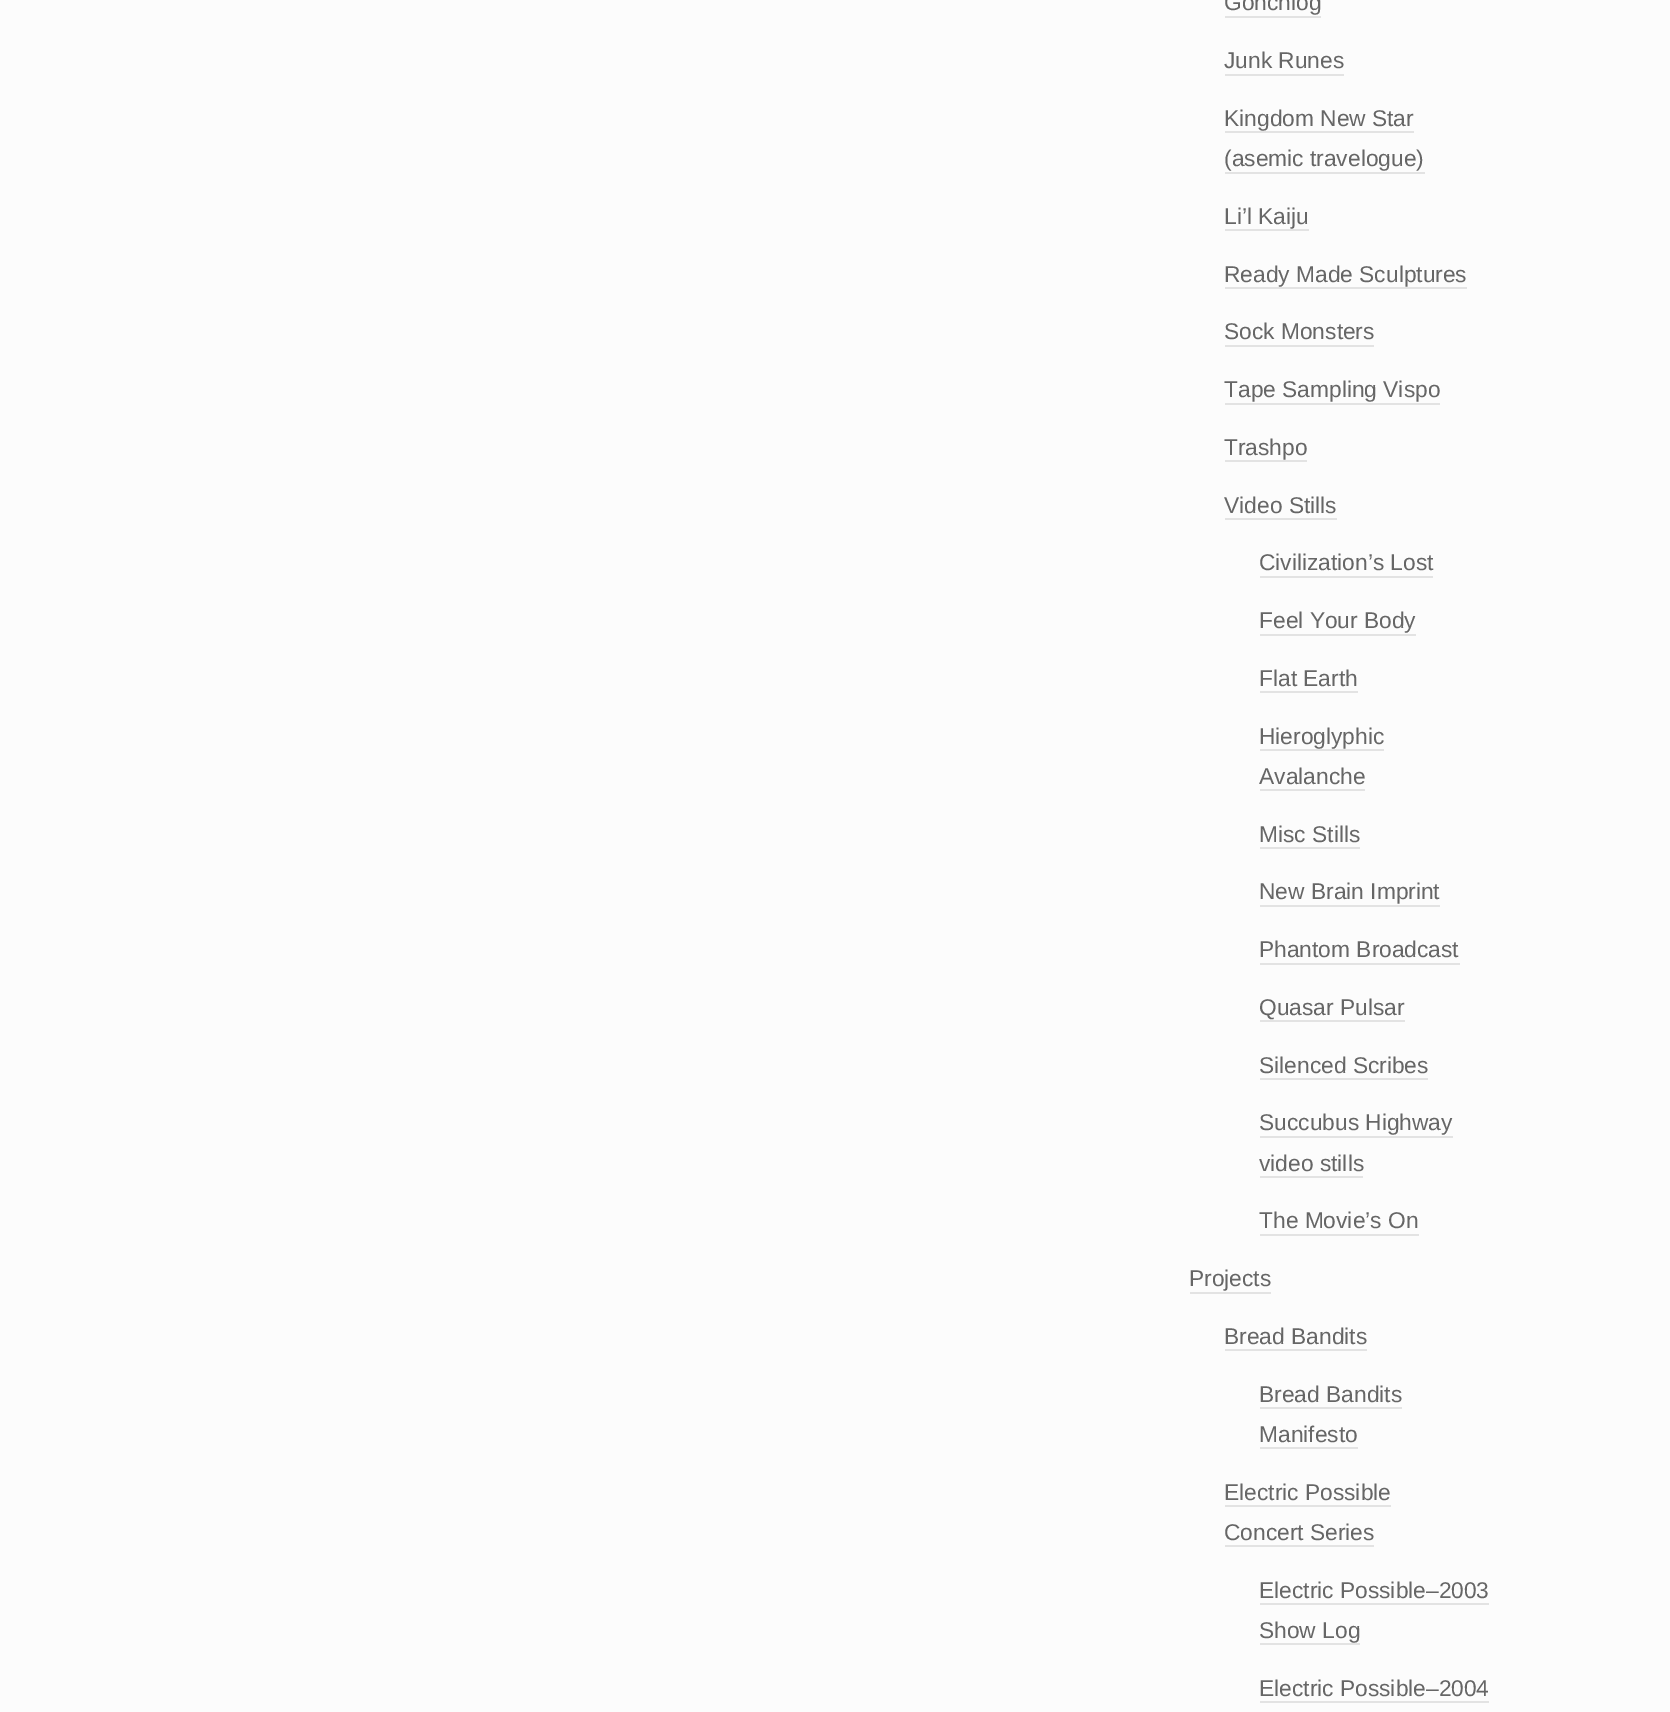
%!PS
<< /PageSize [1670 1712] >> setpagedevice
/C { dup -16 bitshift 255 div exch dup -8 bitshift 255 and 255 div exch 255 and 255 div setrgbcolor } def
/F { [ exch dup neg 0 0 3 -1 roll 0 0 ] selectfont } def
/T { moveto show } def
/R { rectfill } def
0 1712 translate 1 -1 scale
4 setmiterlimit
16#FCFCFC C
0 0 1670 1712 R
/LiberationSans-Regular 22.75 F
16#666666 C
(Gonchlog) 1224 10 T
16#E3E3E3 C
1225 16 96 2 R
16#666666 C
(Junk Runes) 1224 68 T
16#E3E3E3 C
1225 74 119 2 R
16#666666 C
(Kingdom New Star) 1224 126 T
16#E3E3E3 C
1225 131 189 2 R
16#666666 C
(\(asemic travelogue\)) 1224 166 T
16#E3E3E3 C
1225 172 200 2 R
16#666666 C
(Li’l Kaiju) 1224 224 T
16#E3E3E3 C
1225 229 84 2 R
16#666666 C
(Ready Made Sculptures) 1224 282 T
16#E3E3E3 C
1225 287 242 2 R
16#666666 C
(Sock Monsters) 1224 339 T
16#E3E3E3 C
1225 345 149 2 R
16#666666 C
(Tape Sampling Vispo) 1224 397 T
16#E3E3E3 C
1225 403 215 2 R
16#666666 C
(Trashpo) 1224 455 T
16#E3E3E3 C
1225 460 82 2 R
16#666666 C
(Video Stills) 1224 513 T
16#E3E3E3 C
1225 518 112 2 R
16#666666 C
(Civilization’s Lost) 1259 570 T
16#E3E3E3 C
1260 576 173 2 R
16#666666 C
(Feel Your Body) 1259 628 T
16#E3E3E3 C
1260 634 156 2 R
16#666666 C
(Flat Earth) 1259 686 T
16#E3E3E3 C
1260 691 98 2 R
16#666666 C
(Hieroglyphic) 1259 744 T
16#E3E3E3 C
1260 749 124 2 R
16#666666 C
(Avalanche) 1259 784 T
16#E3E3E3 C
1260 789 105 2 R
16#666666 C
(Misc Stills) 1259 842 T
16#E3E3E3 C
1260 847 100 2 R
16#666666 C
(New Brain Imprint) 1259 899 T
16#E3E3E3 C
1260 905 180 2 R
16#666666 C
(Phantom Broadcast) 1259 957 T
16#E3E3E3 C
1260 963 200 2 R
16#666666 C
(Quasar Pulsar) 1259 1015 T
16#E3E3E3 C
1260 1020 145 2 R
16#666666 C
(Silenced Scribes) 1259 1073 T
16#E3E3E3 C
1260 1078 168 2 R
16#666666 C
(Succubus Highway) 1259 1130 T
16#E3E3E3 C
1260 1136 193 2 R
16#666666 C
(video stills) 1259 1171 T
16#E3E3E3 C
1260 1176 103 2 R
16#666666 C
(The Movie’s On) 1259 1228 T
16#E3E3E3 C
1260 1234 159 2 R
16#666666 C
(Projects) 1189 1286 T
16#E3E3E3 C
1190 1292 81 2 R
16#666666 C
(Bread Bandits) 1224 1344 T
16#E3E3E3 C
1225 1349 142 2 R
16#666666 C
(Bread Bandits) 1259 1402 T
16#E3E3E3 C
1260 1407 142 2 R
16#666666 C
(Manifesto) 1259 1442 T
16#E3E3E3 C
1260 1447 98 2 R
16#666666 C
(Electric Possible) 1224 1500 T
16#E3E3E3 C
1225 1505 166 2 R
16#666666 C
(Concert Series) 1224 1540 T
16#E3E3E3 C
1225 1545 149 2 R
16#666666 C
(Electric Possible–2003) 1259 1598 T
16#E3E3E3 C
1260 1603 229 2 R
16#666666 C
(Show Log) 1259 1638 T
16#E3E3E3 C
1260 1643 100 2 R
16#666666 C
(Electric Possible–2004) 1259 1696 T
16#E3E3E3 C
1260 1701 229 2 R
showpage
